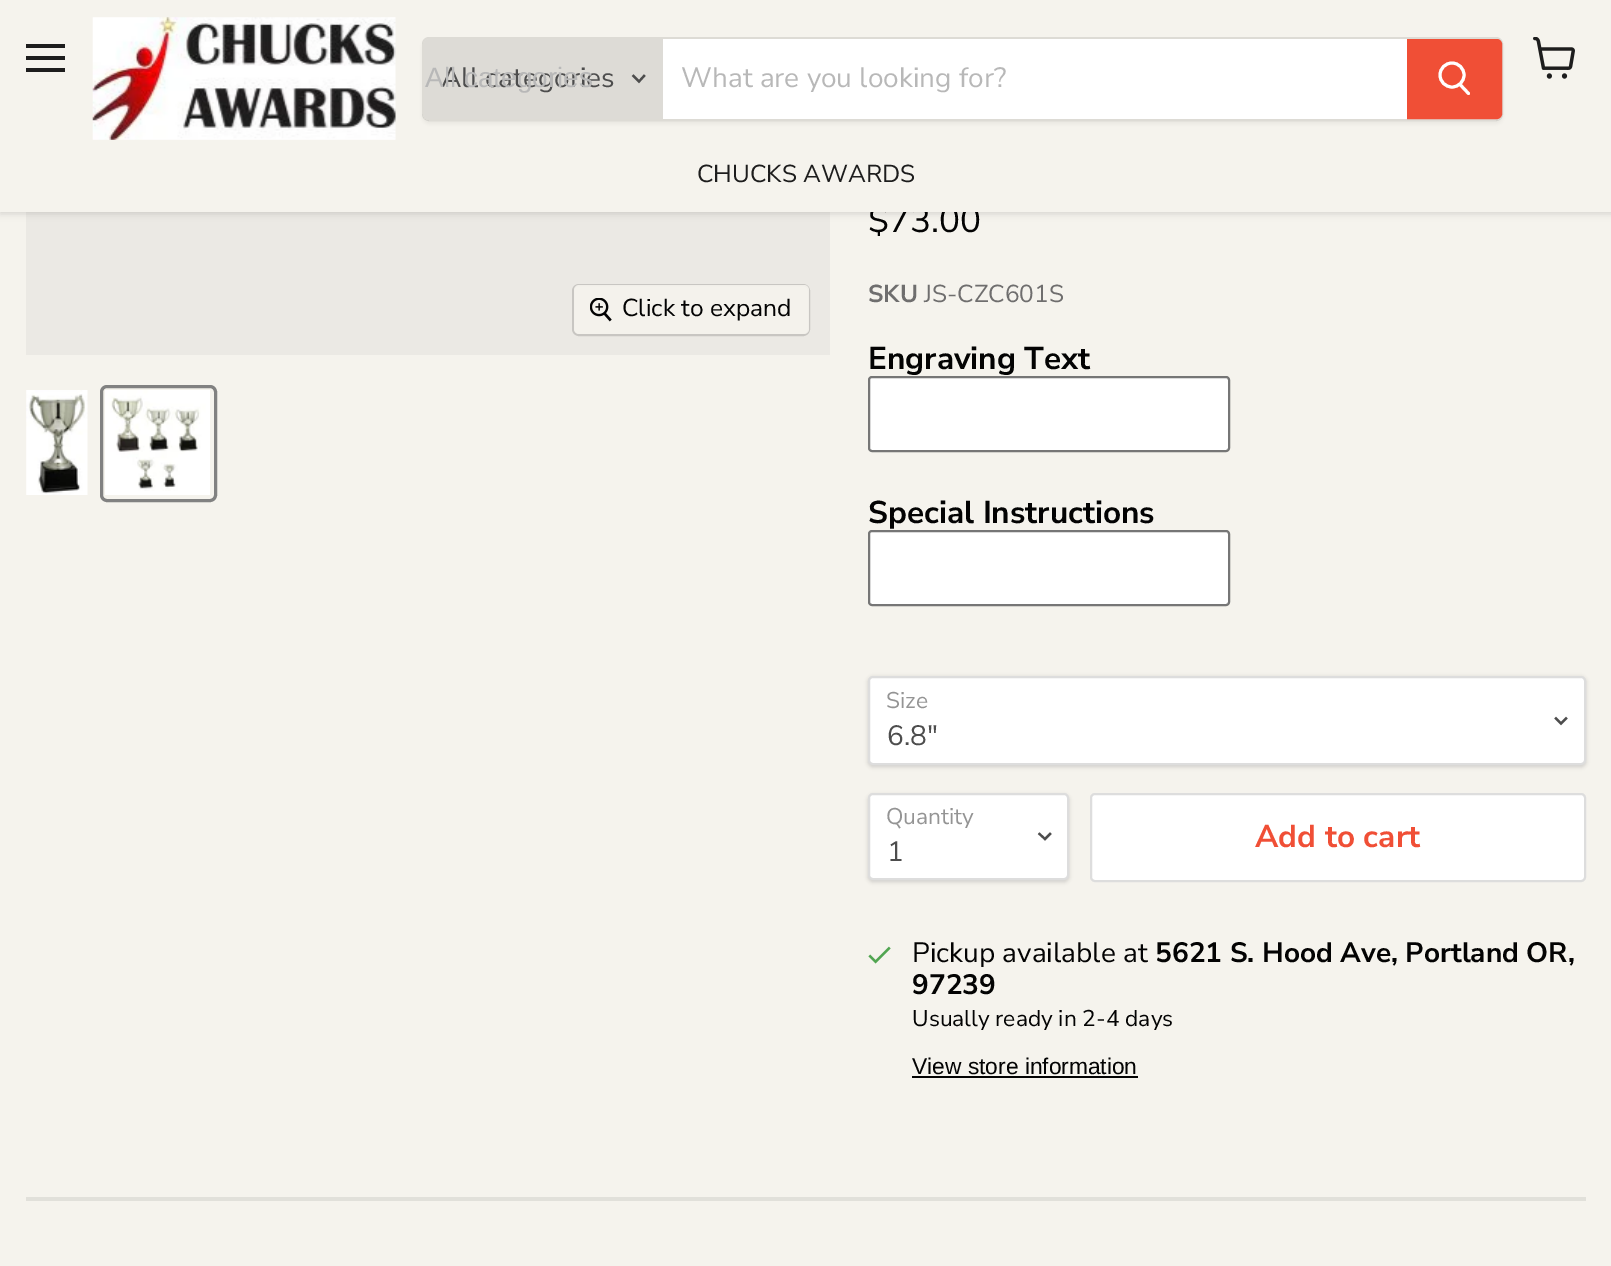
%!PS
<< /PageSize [1611 1266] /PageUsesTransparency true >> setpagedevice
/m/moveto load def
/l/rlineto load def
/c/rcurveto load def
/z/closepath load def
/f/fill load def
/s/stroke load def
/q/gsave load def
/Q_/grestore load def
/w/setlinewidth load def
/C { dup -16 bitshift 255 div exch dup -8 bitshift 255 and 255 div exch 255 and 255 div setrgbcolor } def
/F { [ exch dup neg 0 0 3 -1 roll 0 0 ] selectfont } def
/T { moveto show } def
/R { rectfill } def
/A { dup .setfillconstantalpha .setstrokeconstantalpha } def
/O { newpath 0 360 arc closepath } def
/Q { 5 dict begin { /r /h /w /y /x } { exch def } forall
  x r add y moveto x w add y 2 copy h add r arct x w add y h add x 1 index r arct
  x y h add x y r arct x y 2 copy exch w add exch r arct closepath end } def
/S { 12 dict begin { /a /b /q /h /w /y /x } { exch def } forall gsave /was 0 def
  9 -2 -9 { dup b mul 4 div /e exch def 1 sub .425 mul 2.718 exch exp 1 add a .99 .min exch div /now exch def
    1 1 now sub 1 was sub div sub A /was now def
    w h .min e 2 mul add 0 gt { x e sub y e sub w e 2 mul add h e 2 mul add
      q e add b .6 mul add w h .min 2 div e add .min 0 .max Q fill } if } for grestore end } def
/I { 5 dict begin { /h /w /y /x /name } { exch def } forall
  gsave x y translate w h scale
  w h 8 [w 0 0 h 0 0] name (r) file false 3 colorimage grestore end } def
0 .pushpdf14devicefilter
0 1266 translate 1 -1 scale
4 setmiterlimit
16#F5F3ED C
0 0 1611 1266 R
16#EBE9E4 C
26 212 804 143 R
16#7B7A77 C
0 2 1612 212 0 3.5 .25 S
/NunitoSans-Regular 35 F
16#030303 C
($73.00) 868 232 T
16#F5F3ED C
0 0 1611 212 R
16#1D1D1D C
26 44 39 4 R
26 56 39 4 R
26 68 39 4 R
(1.rgb) 1533 37 42 42 I
(2.rgb) 92 17 304 123 I
q
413 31 m 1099 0 l 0 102 l -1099 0 l z 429 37 m 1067 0 l 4 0 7 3 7 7 c 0 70 l 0 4 -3 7 -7 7 c -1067 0 l -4 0 -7 -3 -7 -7 c 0 -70 l 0 -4 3 -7 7 -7 c z eoclip newpath
16#7B7A77 C
422 40 1081 84 7 2.5 .11 S
Q_
0.2 A
16#7B7A77 C
2 w
423 38 1079 82 6 Q s
1 A
16#DDDBD6 C
429 39 m 234 0 l 0 80 l -234 0 l -3 0 -5 -2 -5 -5 c 0 -70 l 0 -3 2 -5 5 -5 c z f
/NunitoSans-Regular 28 F
16#4D4D4D C
(All categories) 441 87 T
/LiberationSans-Regular 28 F
16#B8B8B8 C
(All categories) 425 87 T
16#4D4D4D C
2.2 w
2 setlinecap
639 81.5 m 5 -5.5 l 639 81.5 m -5.5 -5.5 l s
16#FFFFFF C
663 39 744 80 R
/NunitoSans-Regular 28 F
16#B8B8B8 C
(What are you looking for?) 681 87 T
16#F04F36 C
1408 40 m 89 0 l 2 0 4 2 4 4 c 0 70 l 0 2 -2 4 -4 4 c -89 0 l z q f Q_
2 w
0 setlinecap
s
16#FFFFFF C
3 w
1 setlinecap
1468.5 93.5 m -8 -8.5 l s
0 setlinecap
1452 75 12 O s
/NunitoSans-Regular 24.5 F
16#1D1D1D C
(CHUCKS AWARDS) 697 182 T
16#C8C6C2 C
2 w
573 285 236 50 6 Q s
0.9 A
16#F5F3ED C
574 285 235 49 5 Q f
1 A
(3.rgb) 590 298 22 24 I
16#030303 C
(Click to expand) 622 316 T
(4.rgb) 26 390 62 105 I
16#818181 C
3 w
101.5 386.5 114 114 5.5 Q s
(5.rgb) 105 390 105 105 I
/NunitoSans-Bold 24.5 F
16#6F6E6E C
(SKU) 868 302 T
/NunitoSans-Regular 24.5 F
(JS-CZC601S) 924 302 T
/NunitoSans-Bold 31.5 F
16#030303 C
(Engraving Text) 868 369 T
16#FFFFFF C
869 377 360 74 3 Q q f Q_
16#767676 C
2 w
s
16#030303 C
(Special Instructions) 868 523 T
16#FFFFFF C
869 531 360 74 3 Q q f Q_
16#767676 C
s
16#000000 C
868 677 718 90 5 2 .15 S
16#FFFFFF C
869 677 716 87 4 Q q f Q_
16#DDDDDD C
s
/NunitoSans-Regular 22.75 F
16#949494 C
(Size) 886 708 T
16#4D4D4D C
2.2 w
2 setlinecap
1561 723.5 m 5 -5 l 1561 723.5 m -5 -5 l s
/NunitoSans-Regular 28 F
(6.8") 887 745 T
16#000000 C
868 795 201 87 5 2 .15 S
16#FFFFFF C
869 794 199 85 4 Q q f Q_
16#DDDDDD C
2 w
0 setlinecap
s
/NunitoSans-Regular 22.75 F
16#949494 C
(Quantity) 886 824 T
16#4D4D4D C
2.2 w
2 setlinecap
1045 839 m 5 -5 l 1045 839 m -5.5 -5 l s
/NunitoSans-Regular 28 F
(1) 887 861 T
16#FFFFFF C
1091 794 494 87 4 Q q f Q_
16#DDDDDD C
2 w
0 setlinecap
s
/NunitoSans-Bold 31.5 F
16#F04F36 C
(Add to cart) 1255 847 T
(6.rgb) 868 946 23 18 I
/NunitoSans-Regular 28 F
16#030303 C
(Pickup available at) 912 962 T
/NunitoSans-Bold 28 F
(5621 S. Hood Ave, Portland OR,) 1155 962 T
(97239) 912 994 T
/NunitoSans-Regular 22.75 F
(Usually ready in 2-4 days) 912 1026 T
/LiberationSans-Regular 22.75 F
(View store information) 912 1074 T
912 1076 226 2 R
0.16 A
16#7B7A77 C
26 1197 1560 4 R
.poppdf14devicefilter showpage
